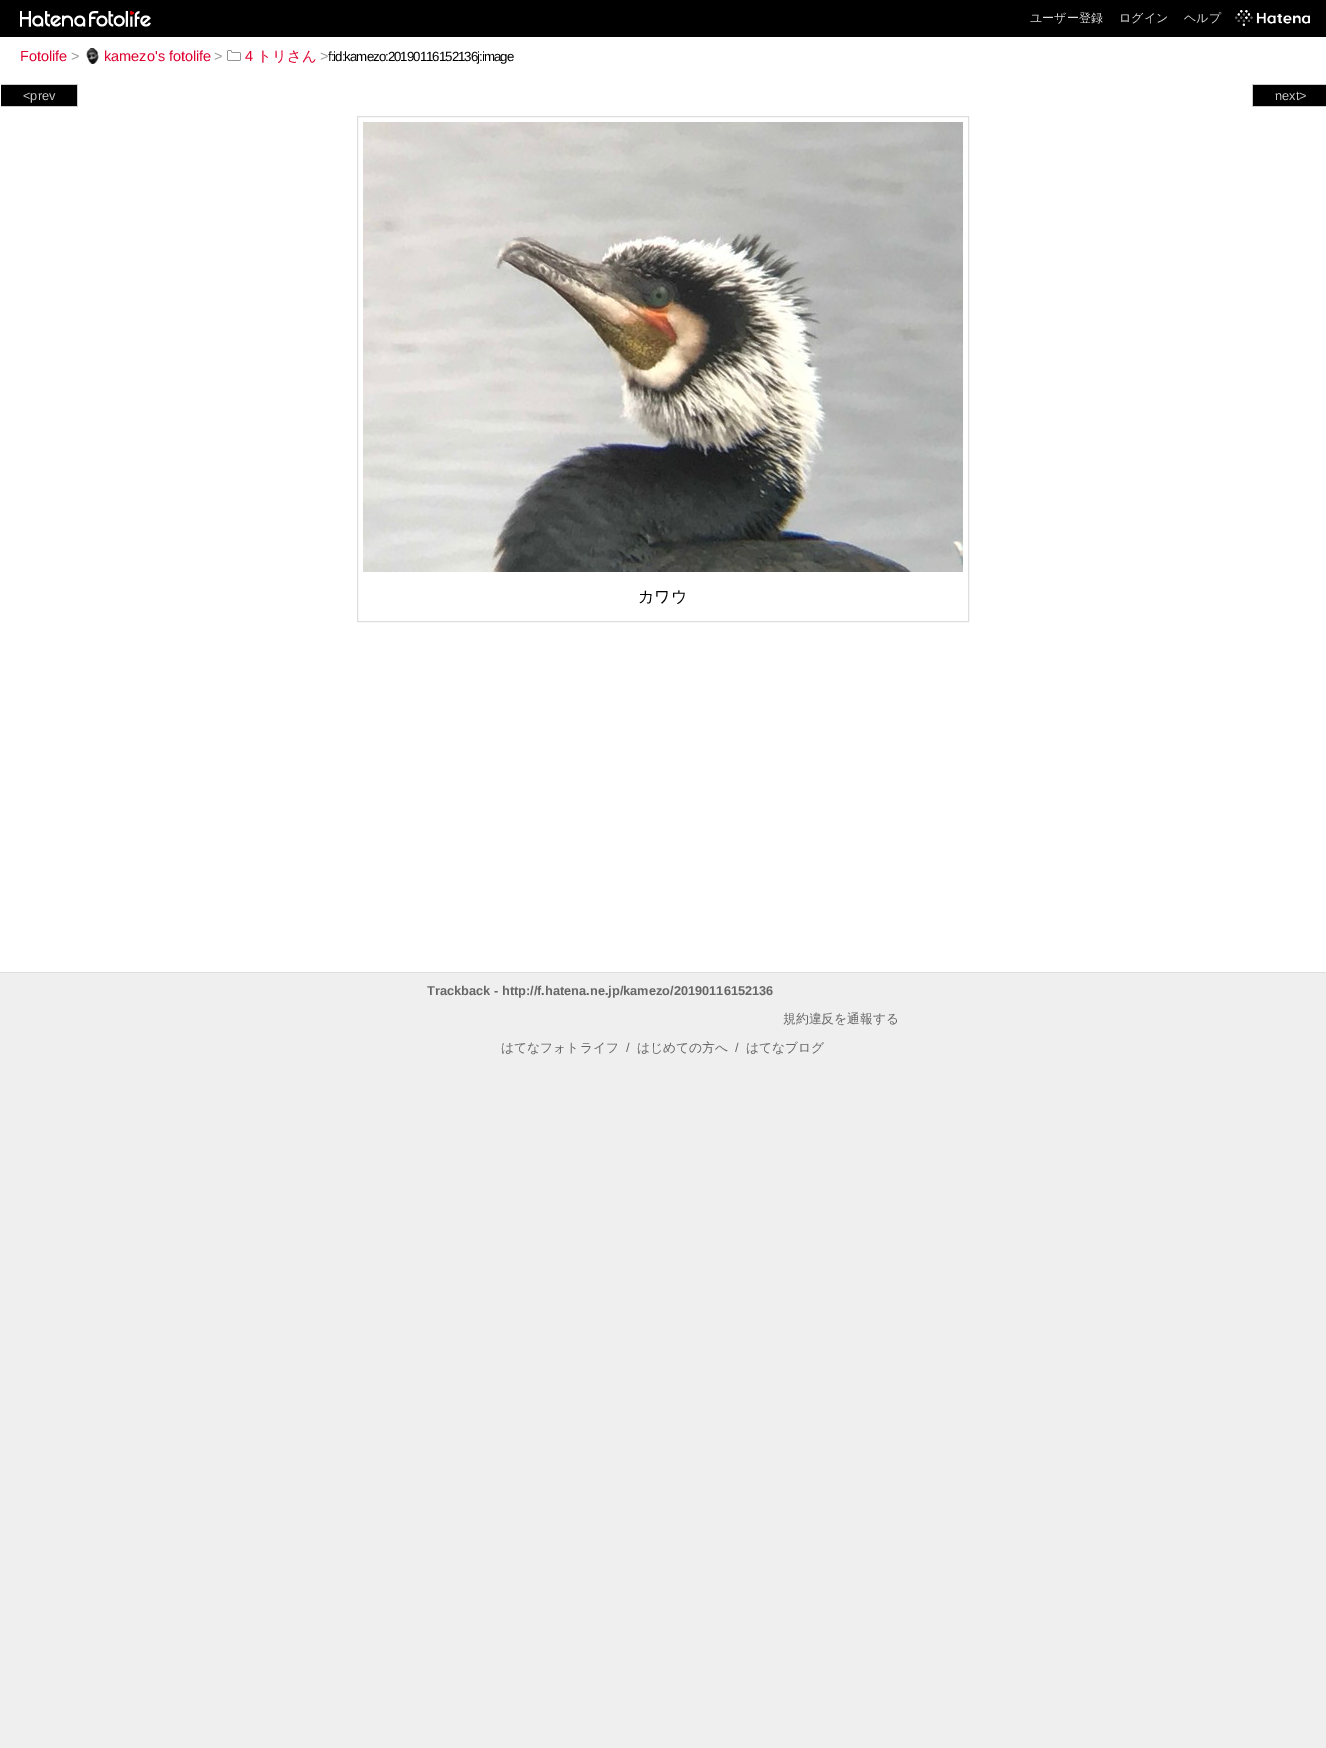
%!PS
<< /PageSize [1326 1748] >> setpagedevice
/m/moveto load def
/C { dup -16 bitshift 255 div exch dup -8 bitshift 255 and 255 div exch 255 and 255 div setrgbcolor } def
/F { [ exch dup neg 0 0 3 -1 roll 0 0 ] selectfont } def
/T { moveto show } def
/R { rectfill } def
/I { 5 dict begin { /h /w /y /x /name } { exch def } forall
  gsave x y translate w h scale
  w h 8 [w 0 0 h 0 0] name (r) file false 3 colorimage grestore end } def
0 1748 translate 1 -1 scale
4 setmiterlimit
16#EFEFEF C
0 0 1326 1748 R
16#000000 C
0 0 1326 37 R
(1.rgb) 20 11 66 16 I
(2.rgb) 89 11 62 16 I
/WenQuanYiZenHei-Medium 12 F
16#DDDDDD C
(ユーザー登録) 1030 22 T
(ログイン) 1119 22 T
(ヘルプ) 1184 22 T
(3.rgb) 1235 10 75 16 I
16#FFFFFF C
0 37 1326 935 R
/LiberationSans-Regular 14.5 F
16#DE002F C
(Fotolife) 20 61 T
16#999999 C
(>) 71 61 T
(4.rgb) 86 48 13 16 I
16#DE002F C
(kamezo's fotolife) 104 61 T
16#999999 C
(>) 214 61 T
(5.rgb) 227 50 14 11 I
16#DE002F C
(4) 245 61 T
/WenQuanYiZenHei-Medium 14.5 F
(トリさん) 257 61 T
/LiberationSans-Regular 14.5 F
16#999999 C
(>) 320 61 T
/LiberationSans-Regular 13.3 F
16#000000 C
328 61 m -1 0 (f:id:kamezo:20190116152136j:image) ashow
16#DEDEDE C
0 972 1326 1 R
16#000000 C
1 85 76 21 R
16#CCCCCC C
1 84 77 1 R
77 84 1 23 R
1 106 77 1 R
/LiberationSans-Regular 12.8 F
(<prev) 23 100 T
16#000000 C
1253 85 73 21 R
16#CCCCCC C
1252 84 74 1 R
1252 106 74 1 R
1252 84 1 23 R
(next>) 1275 100 T
16#DEDEDE C
357.5 116.5 611 505 rectstroke
(6.rgb) 363 122 600 450 I
/WenQuanYiZenHei-Medium 16 F
16#000000 C
(カワウ) 638 602 T
/LiberationSans-Bold 12.8 F
16#666666 C
(Trackback - http://f.hatena.ne.jp/kamezo/20190116152136) 427 995 T
/WenQuanYiZenHei-Medium 12.8 F
(規約違反を通報する) 783 1023 T
(はてなフォトライフ) 501 1052 T
/LiberationSans-Regular 12.8 F
(/) 626 1052 T
/WenQuanYiZenHei-Medium 12.8 F
(はじめての方へ) 637 1052 T
/LiberationSans-Regular 12.8 F
(/) 735 1052 T
/WenQuanYiZenHei-Medium 12.8 F
(はてなブログ) 746 1052 T
showpage
